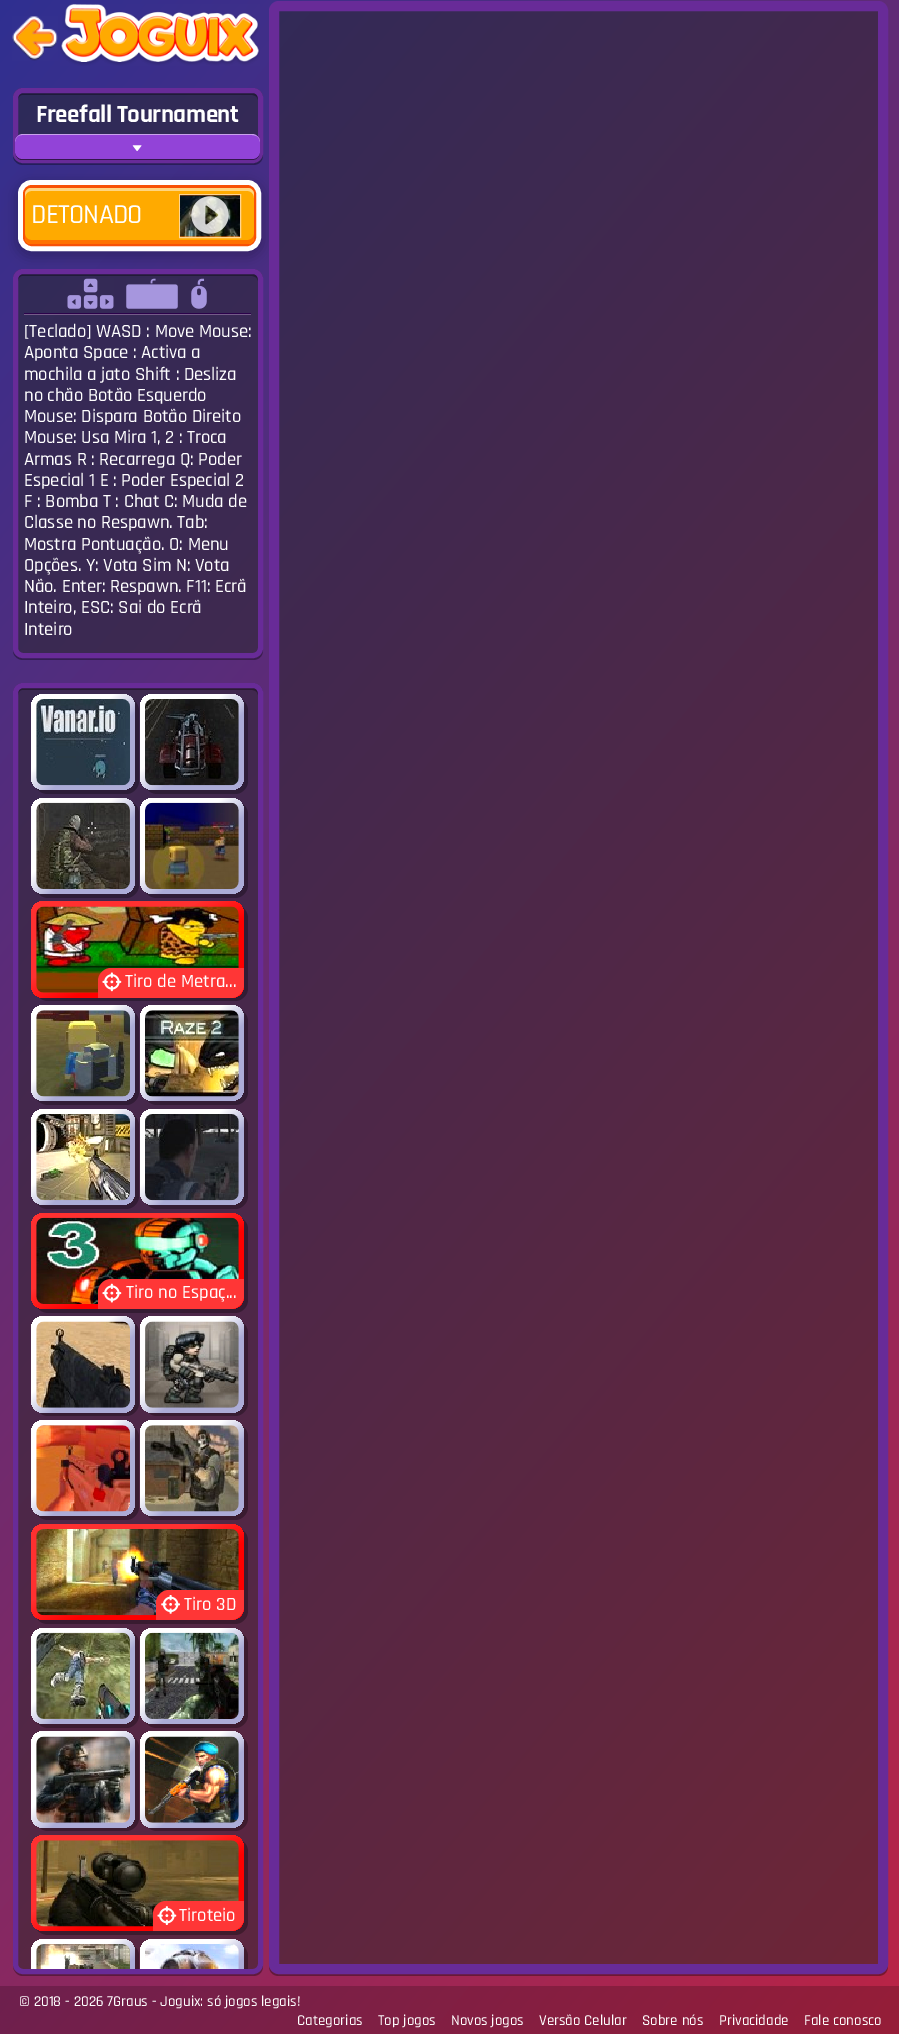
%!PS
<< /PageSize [899 2034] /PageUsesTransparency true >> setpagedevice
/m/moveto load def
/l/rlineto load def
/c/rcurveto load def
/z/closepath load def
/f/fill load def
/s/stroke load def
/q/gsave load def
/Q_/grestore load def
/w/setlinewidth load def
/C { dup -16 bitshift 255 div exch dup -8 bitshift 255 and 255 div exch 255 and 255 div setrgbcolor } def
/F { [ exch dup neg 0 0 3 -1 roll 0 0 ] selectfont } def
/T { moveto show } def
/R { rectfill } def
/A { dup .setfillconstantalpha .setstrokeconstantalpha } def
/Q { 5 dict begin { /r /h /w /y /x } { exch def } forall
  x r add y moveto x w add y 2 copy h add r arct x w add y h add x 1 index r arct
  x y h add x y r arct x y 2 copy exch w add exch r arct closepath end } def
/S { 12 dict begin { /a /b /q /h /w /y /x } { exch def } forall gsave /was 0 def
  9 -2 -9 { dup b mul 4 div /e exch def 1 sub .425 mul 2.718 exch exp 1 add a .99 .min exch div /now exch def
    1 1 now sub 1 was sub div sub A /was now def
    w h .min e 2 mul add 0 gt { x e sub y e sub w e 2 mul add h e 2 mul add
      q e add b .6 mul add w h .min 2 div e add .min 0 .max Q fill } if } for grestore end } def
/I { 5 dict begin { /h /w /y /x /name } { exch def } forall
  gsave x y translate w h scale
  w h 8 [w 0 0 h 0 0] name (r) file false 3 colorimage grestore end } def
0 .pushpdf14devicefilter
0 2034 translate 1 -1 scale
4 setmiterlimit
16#FFFFFF C
0 0 899 2034 R
q 0 0 m 899 0 l 0 1986 l -899 0 l z clip newpath
<< /ShadingType 2 /ColorSpace /DeviceRGB /Coords [-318 368 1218 1657] /Extend [true true] /Function << /FunctionType 2 /Domain [0 1] /C0 [.184 .188 .569] /C1 [.733 .141 .275] /N 1 >> >> shfill Q_
q 0 1986 m 899 0 l 0 48 l -899 0 l z clip newpath
<< /ShadingType 2 /ColorSpace /DeviceRGB /Coords [-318 368 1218 1657] /Extend [true true] /Function << /FunctionType 2 /Domain [0 1] /C0 [.149 .149 .455] /C1 [.588 .114 .22] /N 1 >> >> shfill Q_
(1.rgb) 12 16 46 45 I
(2.rgb) 60 4 200 62 I
0.35 A
16#000000 C
13 156 m 0 5 5 9 10 9 c 230 0 l 6 0 10 -4 10 -10 c 0 -55 l -1 -3 l 0 46 l 0 8 2 19 -10 19 c -230 0 l -4 0 -8 -2 -9 -6 c z f
0.5 A
16#262626 C
13 88 250 75 10 Q f
0.35 A
16#000000 C
22 95 m 230 0 l 3 0 6 2 6 5 c 0 -3 0 -6 -4 -7 c -232 0 l -4 1 -4 4 -4 7 c 0 -3 2 -5 4 -5 c z f
1 A
16#682B98 C
5 w
15.5 90.5 245 70 7.5 Q s
/Rajdhani-Bold 25 F
16#FFFFFF C
36 122 m -.4 0 (Freefall Tournament) ashow
16#34164C C
15 151 m 0 4 2 8 6 9 c 231 0 l 5 0 8 -4 8 -9 c 0 4 -3 8 -8 8 c -230 0 l -4 0 -7 -4 -7 -8 c z f
16#9243D8 C
15 134 245 25 8 Q f
0.5 A
16#FFFFFF C
22 135 m 230 0 l 5 0 8 3 8 7 c 0 -4 -4 -8 -8 -8 c -229 0 l -4 0 -8 4 -8 8 c 0 -4 3 -7 7 -7 c z f
1 A
(3.rgb) 132 145 10 7 I
16#000000 C
15 181 249 77 16 6 .2 S
16#FFFFFF C
8 w
22 184 235 63 10 Q s
16#F85106 C
3 w
24.5 186.5 230 58 7.5 Q s
16#FFAA00 C
25 188 229 56 6 Q f
0.5 A
16#FFFFFF C
31 191 m 217 0 l 3 0 6 3 6 7 c 0 -4 l 0 -3 -3 -6 -6 -6 c -217 0 l -3 0 -6 3 -6 6 c 0 4 l 0 -4 3 -7 6 -7 c z f
1 A
16#FF7100 C
25 234 m 0 4 l 0 3 3 6 6 6 c 217 0 l 3 0 6 -3 6 -6 c 0 -4 l 0 3 -3 6 -6 6 c -217 0 l -3 0 -6 -3 -6 -6 c z f
/Rajdhani-Medium 27.5 F
16#FFFFFF C
31 223 m -.75 0 (DETONADO) ashow
16#FF7000 C
180 236 60 1 R
16#CC5A00 C
180 195 60 1 R
16#FFD591 C
1 w
179.5 194.5 61 43 rectstroke
(4.rgb) 180 195 60 42 I
(5.rgb) 191 196 38 38 I
0.35 A
16#000000 C
13 651 m 0 5 5 9 10 9 c 230 0 l 6 0 10 -4 10 -10 c 0 -369 l -1 -3 l 0 370 l 0 5 -4 10 -10 10 c -230 0 l -4 0 -8 -3 -9 -7 c z f
0.5 A
16#262626 C
13 269 250 389 10 Q f
0.35 A
16#000000 C
22 276 m 230 0 l 3 0 6 2 6 5 c 0 -3 0 -6 -4 -7 c -232 0 l -4 1 -4 4 -4 7 c 0 -3 2 -5 4 -5 c z f
1 A
16#682B98 C
5 w
15.5 271.5 245 384 7.5 Q s
(6.rgb) 67 278 47 31 I
(7.rgb) 126 278 52 31 I
(8.rgb) 191 278 16 31 I
16#2B024A C
24 313 227 1 R
16#755B89 C
24 314 227 1 R
/Rajdhani-Medium 18.75 F
16#FFFFFF C
24 337 m -.1 0 ([Teclado] WASD : Move Mouse:) ashow
24 358 m -.1 0 (Aponta Space : Activa a) ashow
24 380 m -.1 0 (mochila a jato Shift : Desliza) ashow
24 401 m -.1 0 (no chão Botão Esquerdo) ashow
24 422 m -.1 0 (Mouse: Dispara Botão Direito) ashow
24 443 m -.1 0 (Mouse: Usa Mira 1, 2 : Troca) ashow
24 465 m -.1 0 (Armas R : Recarrega Q: Poder) ashow
24 486 m -.1 0 (Especial 1 E : Poder Especial 2) ashow
24 507 m -.1 0 (F : Bomba T : Chat C: Muda de) ashow
24 528 m -.1 0 (Classe no Respawn. Tab:) ashow
24 550 m -.1 0 (Mostra Pontuação. O: Menu) ashow
24 571 m -.1 0 (Opções. Y: Vota Sim N: Vota) ashow
24 592 m -.1 0 (Não. Enter: Respawn. F11: Ecrã) ashow
24 613 m -.1 0 (Inteiro, ESC: Sai do Ecrã) ashow
24 635 m -.1 0 (Inteiro) ashow
0.35 A
16#000000 C
13 1967 m 1 5 5 9 10 9 c 230 0 l 6 0 10 -4 10 -10 c 0 -1271 l -1 -3 l 0 1272 l 0 5 -4 10 -10 10 c -230 0 l -4 0 -8 -3 -9 -7 c z f
0.5 A
16#262626 C
13 683 250 1291 10 Q f
0.35 A
16#000000 C
22 690 m 230 0 l 3 0 6 2 6 5 c 0 -3 0 -6 -4 -7 c -232 0 l -4 1 -4 4 -4 7 c 0 -3 2 -5 4 -5 c z f
1 A
16#682B98 C
15.5 685.5 245 1286 7.5 Q s
16#2C1D38 C
37 788 m 2 4 6 6 11 6 c 78 0 l 7 0 13 -6 13 -13 c 0 -70 l 0 -4 -2 -8 -5 -11 c 0 2 1 4 1 6 c 0 72 l 0 6 -6 12 -13 12 c -78 0 l -3 0 -5 -1 -7 -2 c z f
q 31 694 104 96 13 Q clip newpath
<< /ShadingType 2 /ColorSpace /DeviceRGB /Coords [35 690 131 794] /Extend [true true] /Function << /FunctionType 3 /Domain [0 1] /Functions [<< /FunctionType 2 /Domain [0 1] /C0 [1 1 1] /C1 [1 1 1] /N 1 >> << /FunctionType 2 /Domain [0 1] /C0 [1 1 1] /C1 [.675 .675 .843] /N 1 >> << /FunctionType 2 /Domain [0 1] /C0 [.675 .675 .843] /C1 [.675 .675 .843] /N 1 >>] /Bounds [.4 .6] /Encode [0 1 0 1 0 1] >> >> shfill Q_
(9.rgb) 36 699 94 87 I
16#2E1D37 C
146 788 m 3 4 7 6 11 6 c 78 0 l 7 0 13 -6 13 -13 c 0 -70 l 0 -5 -2 -9 -6 -11 c 1 2 2 4 2 6 c 0 72 l 0 6 -6 12 -13 12 c -79 0 l -2 0 -4 -1 -6 -2 c z f
q 140 694 104 96 13 Q clip newpath
<< /ShadingType 2 /ColorSpace /DeviceRGB /Coords [144 690 240 794] /Extend [true true] /Function << /FunctionType 3 /Domain [0 1] /Functions [<< /FunctionType 2 /Domain [0 1] /C0 [1 1 1] /C1 [1 1 1] /N 1 >> << /FunctionType 2 /Domain [0 1] /C0 [1 1 1] /C1 [.675 .675 .843] /N 1 >> << /FunctionType 2 /Domain [0 1] /C0 [.675 .675 .843] /C1 [.675 .675 .843] /N 1 >>] /Bounds [.4 .6] /Encode [0 1 0 1 0 1] >> >> shfill Q_
(10.rgb) 145 699 94 87 I
37 892 m 2 3 6 6 11 6 c 78 0 l 7 0 13 -6 13 -13 c 0 -71 l 0 -5 -2 -9 -6 -11 c 1 2 2 4 2 7 c 0 71 l 0 7 -6 13 -13 13 c -78 0 l -3 0 -5 -1 -7 -2 c z f
q 31 798 104 96 13 Q clip newpath
<< /ShadingType 2 /ColorSpace /DeviceRGB /Coords [35 794 131 897] /Extend [true true] /Function << /FunctionType 3 /Domain [0 1] /Functions [<< /FunctionType 2 /Domain [0 1] /C0 [1 1 1] /C1 [1 1 1] /N 1 >> << /FunctionType 2 /Domain [0 1] /C0 [1 1 1] /C1 [.675 .675 .843] /N 1 >> << /FunctionType 2 /Domain [0 1] /C0 [.675 .675 .843] /C1 [.675 .675 .843] /N 1 >>] /Bounds [.4 .6] /Encode [0 1 0 1 0 1] >> >> shfill Q_
(11.rgb) 36 802 94 87 I
0.3 A
16#000000 C
146 892 m 2 4 6 6 11 6 c 78 0 l 7 0 13 -6 13 -13 c 0 -71 l 0 -5 -3 -9 -7 -11 c 2 2 3 4 3 7 c 0 71 l 0 7 -6 13 -13 13 c -79 0 l -2 0 -4 -1 -6 -2 c z f
1 A
q 140 798 104 96 13 Q clip newpath
<< /ShadingType 2 /ColorSpace /DeviceRGB /Coords [144 794 240 897] /Extend [true true] /Function << /FunctionType 3 /Domain [0 1] /Functions [<< /FunctionType 2 /Domain [0 1] /C0 [1 1 1] /C1 [1 1 1] /N 1 >> << /FunctionType 2 /Domain [0 1] /C0 [1 1 1] /C1 [.675 .675 .843] /N 1 >> << /FunctionType 2 /Domain [0 1] /C0 [.675 .675 .843] /C1 [.675 .675 .843] /N 1 >>] /Bounds [.4 .6] /Encode [0 1 0 1 0 1] >> >> shfill Q_
(12.rgb) 145 802 94 87 I
0.3 A
38 996 m 2 3 6 5 10 5 c 187 0 l 7 0 13 -6 13 -13 c 0 -70 l 0 -5 -3 -9 -6 -11 c 1 2 2 4 2 7 c 0 71 l 0 7 -6 13 -13 13 c -187 0 l -2 0 -4 -1 -6 -2 c z f
1 A
q 31 901 213 97 13 Q clip newpath
<< /ShadingType 2 /ColorSpace /DeviceRGB /Coords [101 870 174 1029] /Extend [true true] /Function << /FunctionType 3 /Domain [0 1] /Functions [<< /FunctionType 2 /Domain [0 1] /C0 [1 .188 .188] /C1 [1 .188 .188] /N 1 >> << /FunctionType 2 /Domain [0 1] /C0 [1 .188 .188] /C1 [1 0 0] /N 1 >> << /FunctionType 2 /Domain [0 1] /C0 [1 0 0] /C1 [1 0 0] /N 1 >>] /Bounds [.4 .6] /Encode [0 1 0 1 0 1] >> >> shfill Q_
(13.rgb) 36 906 203 87 I
16#FF3636 C
111 968 m 133 0 l 0 17 l 0 7 -6 13 -13 13 c -133 0 l 0 -17 l 0 -7 6 -13 13 -13 c z f
(14.rgb) 102 972 20 20 I
16#FFFFFF C
(Tiro de Metra...) 125 987 T
16#311C36 C
37 1100 m 3 3 7 5 11 5 c 78 0 l 7 0 13 -6 13 -13 c 0 -70 l 0 -4 -2 -8 -6 -11 c 1 2 2 4 2 7 c 0 71 l 0 7 -6 12 -13 12 c -78 0 l -3 0 -5 0 -7 -1 c z f
q 31 1005 104 96 13 Q clip newpath
<< /ShadingType 2 /ColorSpace /DeviceRGB /Coords [35 1001 131 1105] /Extend [true true] /Function << /FunctionType 3 /Domain [0 1] /Functions [<< /FunctionType 2 /Domain [0 1] /C0 [1 1 1] /C1 [1 1 1] /N 1 >> << /FunctionType 2 /Domain [0 1] /C0 [1 1 1] /C1 [.675 .675 .843] /N 1 >> << /FunctionType 2 /Domain [0 1] /C0 [.675 .675 .843] /C1 [.675 .675 .843] /N 1 >>] /Bounds [.4 .6] /Encode [0 1 0 1 0 1] >> >> shfill Q_
(15.rgb) 36 1010 94 87 I
16#331C35 C
147 1100 m 2 3 6 5 10 5 c 78 0 l 7 0 13 -6 13 -13 c 0 -70 l 0 -5 -2 -9 -6 -11 c 1 2 2 4 2 7 c 0 71 l 0 7 -6 12 -13 12 c -79 0 l -2 0 -4 0 -5 -1 c z f
q 140 1005 104 96 13 Q clip newpath
<< /ShadingType 2 /ColorSpace /DeviceRGB /Coords [144 1001 240 1105] /Extend [true true] /Function << /FunctionType 3 /Domain [0 1] /Functions [<< /FunctionType 2 /Domain [0 1] /C0 [1 1 1] /C1 [1 1 1] /N 1 >> << /FunctionType 2 /Domain [0 1] /C0 [1 1 1] /C1 [.675 .675 .843] /N 1 >> << /FunctionType 2 /Domain [0 1] /C0 [.675 .675 .843] /C1 [.675 .675 .843] /N 1 >>] /Bounds [.4 .6] /Encode [0 1 0 1 0 1] >> >> shfill Q_
(16.rgb) 145 1010 94 87 I
37 1203 m 2 4 6 6 11 6 c 78 0 l 7 0 13 -6 13 -13 c 0 -70 l 0 -4 -2 -8 -5 -11 c 0 2 1 4 1 6 c 0 71 l 0 7 -6 13 -13 13 c -78 0 l -3 0 -5 -1 -7 -2 c z f
q 31 1109 104 96 13 Q clip newpath
<< /ShadingType 2 /ColorSpace /DeviceRGB /Coords [35 1105 131 1209] /Extend [true true] /Function << /FunctionType 3 /Domain [0 1] /Functions [<< /FunctionType 2 /Domain [0 1] /C0 [1 1 1] /C1 [1 1 1] /N 1 >> << /FunctionType 2 /Domain [0 1] /C0 [1 1 1] /C1 [.675 .675 .843] /N 1 >> << /FunctionType 2 /Domain [0 1] /C0 [.675 .675 .843] /C1 [.675 .675 .843] /N 1 >>] /Bounds [.4 .6] /Encode [0 1 0 1 0 1] >> >> shfill Q_
(17.rgb) 36 1114 94 87 I
0.3 A
16#000000 C
146 1203 m 3 4 7 6 11 6 c 78 0 l 7 0 13 -6 13 -13 c 0 -70 l 0 -5 -2 -9 -6 -11 c 1 2 2 4 2 6 c 0 71 l 0 7 -6 13 -13 13 c -79 0 l -2 0 -4 -1 -6 -2 c z f
1 A
q 140 1109 104 96 13 Q clip newpath
<< /ShadingType 2 /ColorSpace /DeviceRGB /Coords [144 1105 240 1209] /Extend [true true] /Function << /FunctionType 3 /Domain [0 1] /Functions [<< /FunctionType 2 /Domain [0 1] /C0 [1 1 1] /C1 [1 1 1] /N 1 >> << /FunctionType 2 /Domain [0 1] /C0 [1 1 1] /C1 [.675 .675 .843] /N 1 >> << /FunctionType 2 /Domain [0 1] /C0 [.675 .675 .843] /C1 [.675 .675 .843] /N 1 >>] /Bounds [.4 .6] /Encode [0 1 0 1 0 1] >> >> shfill Q_
(18.rgb) 145 1114 94 87 I
0.3 A
37 1307 m 2 3 6 6 11 6 c 187 0 l 7 0 13 -6 13 -13 c 0 -71 l 0 -5 -3 -9 -7 -11 c 2 2 3 4 3 7 c 0 71 l 0 7 -6 13 -13 13 c -187 0 l -3 0 -5 -1 -7 -2 c z f
1 A
q 31 1213 213 96 13 Q clip newpath
<< /ShadingType 2 /ColorSpace /DeviceRGB /Coords [101 1181 174 1340] /Extend [true true] /Function << /FunctionType 3 /Domain [0 1] /Functions [<< /FunctionType 2 /Domain [0 1] /C0 [1 .188 .188] /C1 [1 .188 .188] /N 1 >> << /FunctionType 2 /Domain [0 1] /C0 [1 .188 .188] /C1 [1 0 0] /N 1 >> << /FunctionType 2 /Domain [0 1] /C0 [1 0 0] /C1 [1 0 0] /N 1 >>] /Bounds [.4 .6] /Encode [0 1 0 1 0 1] >> >> shfill Q_
(19.rgb) 36 1217 203 87 I
16#FF3636 C
111 1279 m 133 0 l 0 17 l 0 7 -6 13 -13 13 c -133 0 l 0 -17 l 0 -7 6 -13 13 -13 c z f
(20.rgb) 102 1283 20 20 I
16#FFFFFF C
(Tiro no Espaç...) 126 1298 T
16#361C33 C
38 1411 m 2 3 6 5 10 5 c 78 0 l 7 0 13 -6 13 -13 c 0 -70 l 0 -5 -2 -9 -6 -11 c 1 2 2 4 2 7 c 0 71 l 0 7 -6 12 -13 12 c -78 0 l -2 0 -4 0 -6 -1 c z f
q 31 1316 104 97 13 Q clip newpath
<< /ShadingType 2 /ColorSpace /DeviceRGB /Coords [35 1313 131 1416] /Extend [true true] /Function << /FunctionType 3 /Domain [0 1] /Functions [<< /FunctionType 2 /Domain [0 1] /C0 [1 1 1] /C1 [1 1 1] /N 1 >> << /FunctionType 2 /Domain [0 1] /C0 [1 1 1] /C1 [.675 .675 .843] /N 1 >> << /FunctionType 2 /Domain [0 1] /C0 [.675 .675 .843] /C1 [.675 .675 .843] /N 1 >>] /Bounds [.4 .6] /Encode [0 1 0 1 0 1] >> >> shfill Q_
(21.rgb) 36 1321 94 87 I
16#381C32 C
147 1411 m 2 3 6 5 10 5 c 78 0 l 7 0 13 -6 13 -13 c 0 -70 l 0 -5 -3 -9 -6 -11 c 1 2 2 4 2 7 c 0 71 l 0 7 -6 12 -13 12 c -79 0 l -2 0 -3 0 -5 -1 c z f
q 140 1316 104 97 13 Q clip newpath
<< /ShadingType 2 /ColorSpace /DeviceRGB /Coords [144 1313 240 1416] /Extend [true true] /Function << /FunctionType 3 /Domain [0 1] /Functions [<< /FunctionType 2 /Domain [0 1] /C0 [1 1 1] /C1 [1 1 1] /N 1 >> << /FunctionType 2 /Domain [0 1] /C0 [1 1 1] /C1 [.675 .675 .843] /N 1 >> << /FunctionType 2 /Domain [0 1] /C0 [.675 .675 .843] /C1 [.675 .675 .843] /N 1 >>] /Bounds [.4 .6] /Encode [0 1 0 1 0 1] >> >> shfill Q_
(22.rgb) 145 1321 94 87 I
37 1515 m 3 3 7 5 11 5 c 78 0 l 7 0 13 -6 13 -13 c 0 -70 l 0 -4 -2 -8 -6 -11 c 1 2 2 4 2 6 c 0 72 l 0 7 -6 12 -13 12 c -78 0 l -3 0 -5 0 -7 -1 c z f
q 31 1420 104 96 13 Q clip newpath
<< /ShadingType 2 /ColorSpace /DeviceRGB /Coords [35 1416 131 1520] /Extend [true true] /Function << /FunctionType 3 /Domain [0 1] /Functions [<< /FunctionType 2 /Domain [0 1] /C0 [1 1 1] /C1 [1 1 1] /N 1 >> << /FunctionType 2 /Domain [0 1] /C0 [1 1 1] /C1 [.675 .675 .843] /N 1 >> << /FunctionType 2 /Domain [0 1] /C0 [.675 .675 .843] /C1 [.675 .675 .843] /N 1 >>] /Bounds [.4 .6] /Encode [0 1 0 1 0 1] >> >> shfill Q_
(23.rgb) 36 1425 94 87 I
0.3 A
16#000000 C
147 1515 m 2 3 6 5 10 5 c 78 0 l 7 0 13 -6 13 -13 c 0 -70 l 0 -5 -2 -9 -6 -11 c 1 2 2 4 2 6 c 0 72 l 0 7 -6 12 -13 12 c -79 0 l -2 0 -4 0 -5 -1 c z f
1 A
q 140 1420 104 96 13 Q clip newpath
<< /ShadingType 2 /ColorSpace /DeviceRGB /Coords [144 1416 240 1520] /Extend [true true] /Function << /FunctionType 3 /Domain [0 1] /Functions [<< /FunctionType 2 /Domain [0 1] /C0 [1 1 1] /C1 [1 1 1] /N 1 >> << /FunctionType 2 /Domain [0 1] /C0 [1 1 1] /C1 [.675 .675 .843] /N 1 >> << /FunctionType 2 /Domain [0 1] /C0 [.675 .675 .843] /C1 [.675 .675 .843] /N 1 >>] /Bounds [.4 .6] /Encode [0 1 0 1 0 1] >> >> shfill Q_
(24.rgb) 145 1425 94 87 I
0.3 A
37 1618 m 2 4 6 6 11 6 c 187 0 l 7 0 13 -6 13 -13 c 0 -70 l 0 -5 -2 -9 -6 -11 c 1 2 2 4 2 6 c 0 72 l 0 6 -6 12 -13 12 c -187 0 l -3 0 -5 -1 -7 -2 c z f
1 A
q 31 1524 213 96 13 Q clip newpath
<< /ShadingType 2 /ColorSpace /DeviceRGB /Coords [101 1492 174 1652] /Extend [true true] /Function << /FunctionType 3 /Domain [0 1] /Functions [<< /FunctionType 2 /Domain [0 1] /C0 [1 .188 .188] /C1 [1 .188 .188] /N 1 >> << /FunctionType 2 /Domain [0 1] /C0 [1 .188 .188] /C1 [1 0 0] /N 1 >> << /FunctionType 2 /Domain [0 1] /C0 [1 0 0] /C1 [1 0 0] /N 1 >>] /Bounds [.4 .6] /Encode [0 1 0 1 0 1] >> >> shfill Q_
(25.rgb) 36 1529 203 87 I
16#FF3636 C
169 1590 m 75 0 l 0 17 l 0 7 -6 13 -13 13 c -75 0 l 0 -17 l 0 -7 6 -13 13 -13 c z f
(26.rgb) 161 1595 19 19 I
16#FFFFFF C
(Tiro 3D) 184 1610 T
16#3B1C31 C
37 1722 m 2 3 6 6 11 6 c 78 0 l 7 0 13 -6 13 -13 c 0 -71 l 0 -5 -2 -9 -6 -11 c 1 2 2 4 2 7 c 0 71 l 0 7 -6 13 -13 13 c -78 0 l -3 0 -5 -1 -7 -2 c z f
q 31 1628 104 96 13 Q clip newpath
<< /ShadingType 2 /ColorSpace /DeviceRGB /Coords [35 1624 131 1727] /Extend [true true] /Function << /FunctionType 3 /Domain [0 1] /Functions [<< /FunctionType 2 /Domain [0 1] /C0 [1 1 1] /C1 [1 1 1] /N 1 >> << /FunctionType 2 /Domain [0 1] /C0 [1 1 1] /C1 [.675 .675 .843] /N 1 >> << /FunctionType 2 /Domain [0 1] /C0 [.675 .675 .843] /C1 [.675 .675 .843] /N 1 >>] /Bounds [.4 .6] /Encode [0 1 0 1 0 1] >> >> shfill Q_
(27.rgb) 36 1632 94 87 I
16#3D1B2F C
146 1722 m 2 4 6 6 11 6 c 78 0 l 7 0 13 -6 13 -13 c 0 -71 l 0 -5 -3 -9 -7 -11 c 2 2 3 4 3 7 c 0 71 l 0 7 -6 13 -13 13 c -79 0 l -2 0 -4 -1 -6 -2 c z f
q 140 1628 104 96 13 Q clip newpath
<< /ShadingType 2 /ColorSpace /DeviceRGB /Coords [144 1624 240 1727] /Extend [true true] /Function << /FunctionType 3 /Domain [0 1] /Functions [<< /FunctionType 2 /Domain [0 1] /C0 [1 1 1] /C1 [1 1 1] /N 1 >> << /FunctionType 2 /Domain [0 1] /C0 [1 1 1] /C1 [.675 .675 .843] /N 1 >> << /FunctionType 2 /Domain [0 1] /C0 [.675 .675 .843] /C1 [.675 .675 .843] /N 1 >>] /Bounds [.4 .6] /Encode [0 1 0 1 0 1] >> >> shfill Q_
(28.rgb) 145 1632 94 87 I
16#3C1B30 C
38 1826 m 2 3 6 5 10 5 c 78 0 l 7 0 13 -6 13 -13 c 0 -70 l 0 -5 -2 -9 -6 -11 c 1 2 2 4 2 7 c 0 71 l 0 7 -6 13 -13 13 c -78 0 l -2 0 -4 -1 -6 -2 c z f
q 31 1731 104 97 13 Q clip newpath
<< /ShadingType 2 /ColorSpace /DeviceRGB /Coords [35 1728 131 1831] /Extend [true true] /Function << /FunctionType 3 /Domain [0 1] /Functions [<< /FunctionType 2 /Domain [0 1] /C0 [1 1 1] /C1 [1 1 1] /N 1 >> << /FunctionType 2 /Domain [0 1] /C0 [1 1 1] /C1 [.675 .675 .843] /N 1 >> << /FunctionType 2 /Domain [0 1] /C0 [.675 .675 .843] /C1 [.675 .675 .843] /N 1 >>] /Bounds [.4 .6] /Encode [0 1 0 1 0 1] >> >> shfill Q_
(29.rgb) 36 1736 94 87 I
0.3 A
16#000000 C
147 1826 m 2 3 6 5 10 5 c 78 0 l 7 0 13 -6 13 -13 c 0 -70 l 0 -5 -3 -9 -6 -11 c 1 2 2 4 2 7 c 0 71 l 0 7 -6 13 -13 13 c -79 0 l -2 0 -3 -1 -5 -2 c z f
1 A
q 140 1731 104 97 13 Q clip newpath
<< /ShadingType 2 /ColorSpace /DeviceRGB /Coords [144 1728 240 1831] /Extend [true true] /Function << /FunctionType 3 /Domain [0 1] /Functions [<< /FunctionType 2 /Domain [0 1] /C0 [1 1 1] /C1 [1 1 1] /N 1 >> << /FunctionType 2 /Domain [0 1] /C0 [1 1 1] /C1 [.675 .675 .843] /N 1 >> << /FunctionType 2 /Domain [0 1] /C0 [.675 .675 .843] /C1 [.675 .675 .843] /N 1 >>] /Bounds [.4 .6] /Encode [0 1 0 1 0 1] >> >> shfill Q_
(30.rgb) 145 1736 94 87 I
0.3 A
37 1930 m 3 3 7 5 11 5 c 187 0 l 7 0 13 -6 13 -13 c 0 -70 l 0 -5 -2 -9 -6 -11 c 1 2 2 4 2 7 c 0 71 l 0 7 -6 12 -13 12 c -187 0 l -3 0 -5 0 -7 -1 c z f
1 A
q 31 1835 213 96 13 Q clip newpath
<< /ShadingType 2 /ColorSpace /DeviceRGB /Coords [101 1803 174 1963] /Extend [true true] /Function << /FunctionType 3 /Domain [0 1] /Functions [<< /FunctionType 2 /Domain [0 1] /C0 [1 .188 .188] /C1 [1 .188 .188] /N 1 >> << /FunctionType 2 /Domain [0 1] /C0 [1 .188 .188] /C1 [1 0 0] /N 1 >> << /FunctionType 2 /Domain [0 1] /C0 [1 0 0] /C1 [1 0 0] /N 1 >>] /Bounds [.4 .6] /Encode [0 1 0 1 0 1] >> >> shfill Q_
(31.rgb) 36 1840 203 87 I
16#FF3636 C
166 1901 m 78 0 l 0 17 l 0 7 -6 13 -13 13 c -78 0 l 0 -17 l 0 -7 6 -13 13 -13 c z f
(32.rgb) 157 1906 20 19 I
16#FFFFFF C
(Tiroteio) 179 1921 T
16#3F1B2E C
135 1969 m 4 0 l 0 -13 l 0 -4.5 -2 -8 -5.5 -10.5 c 1 1.5 1.5 3.5 1.5 5.5 c z f
q 44 1939 m 78 0 l 7 0 13 6 13 13 c 0 17 l -104 0 l 0 -17 l 0 -7 6 -13 13 -13 c z clip newpath
<< /ShadingType 2 /ColorSpace /DeviceRGB /Coords [35 1935 131 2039] /Extend [true true] /Function << /FunctionType 3 /Domain [0 1] /Functions [<< /FunctionType 2 /Domain [0 1] /C0 [1 1 1] /C1 [1 1 1] /N 1 >> << /FunctionType 2 /Domain [0 1] /C0 [1 1 1] /C1 [.675 .675 .843] /N 1 >> << /FunctionType 2 /Domain [0 1] /C0 [.675 .675 .843] /C1 [.675 .675 .843] /N 1 >>] /Bounds [.4 .6] /Encode [0 1 0 1 0 1] >> >> shfill Q_
(33.rgb) 36 1944 94 25 I
16#411B2D C
244 1969 m 4 0 l 0 -13 l 0 -4.5 -2.5 -8.5 -6 -11 c 1 2 2 4 2 6 c z f
q 153 1939 m 78 0 l 7 0 13 6 13 13 c 0 17 l -104 0 l 0 -17 l 0 -7 6 -13 13 -13 c z clip newpath
<< /ShadingType 2 /ColorSpace /DeviceRGB /Coords [144 1935 240 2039] /Extend [true true] /Function << /FunctionType 3 /Domain [0 1] /Functions [<< /FunctionType 2 /Domain [0 1] /C0 [1 1 1] /C1 [1 1 1] /N 1 >> << /FunctionType 2 /Domain [0 1] /C0 [1 1 1] /C1 [.675 .675 .843] /N 1 >> << /FunctionType 2 /Domain [0 1] /C0 [.675 .675 .843] /C1 [.675 .675 .843] /N 1 >>] /Bounds [.4 .6] /Encode [0 1 0 1 0 1] >> >> shfill Q_
(34.rgb) 145 1944 94 25 I
0.35 A
16#000000 C
269 1966 m 0 6 4 10 10 10 c 599 0 l 6 0 10 -4 10 -10 c 0 -1952 l -1 -3 l 1 1953 l 0 5 -5 10 -10 10 c -599 0 l -5 0 -9 -4 -10 -8 c z f
0.5 A
16#262626 C
274 6 609 1963 5 Q f
1 A
16#682B98 C
10 w
274 6 609 1963 5 Q s
/Rajdhani-Medium 15 F
16#FFFFFF C
(© 2018 - 2026 7Graus - Joguix: só jogos legais!) 19 2006 T
(Categorias) 297 2025 T
(Top jogos) 378 2025 T
(Novos jogos) 451 2025 T
(Versão Celular) 539 2025 T
(Sobre nós) 642 2025 T
(Privacidade) 719 2025 T
(Fale conosco) 804 2025 T
.poppdf14devicefilter showpage
